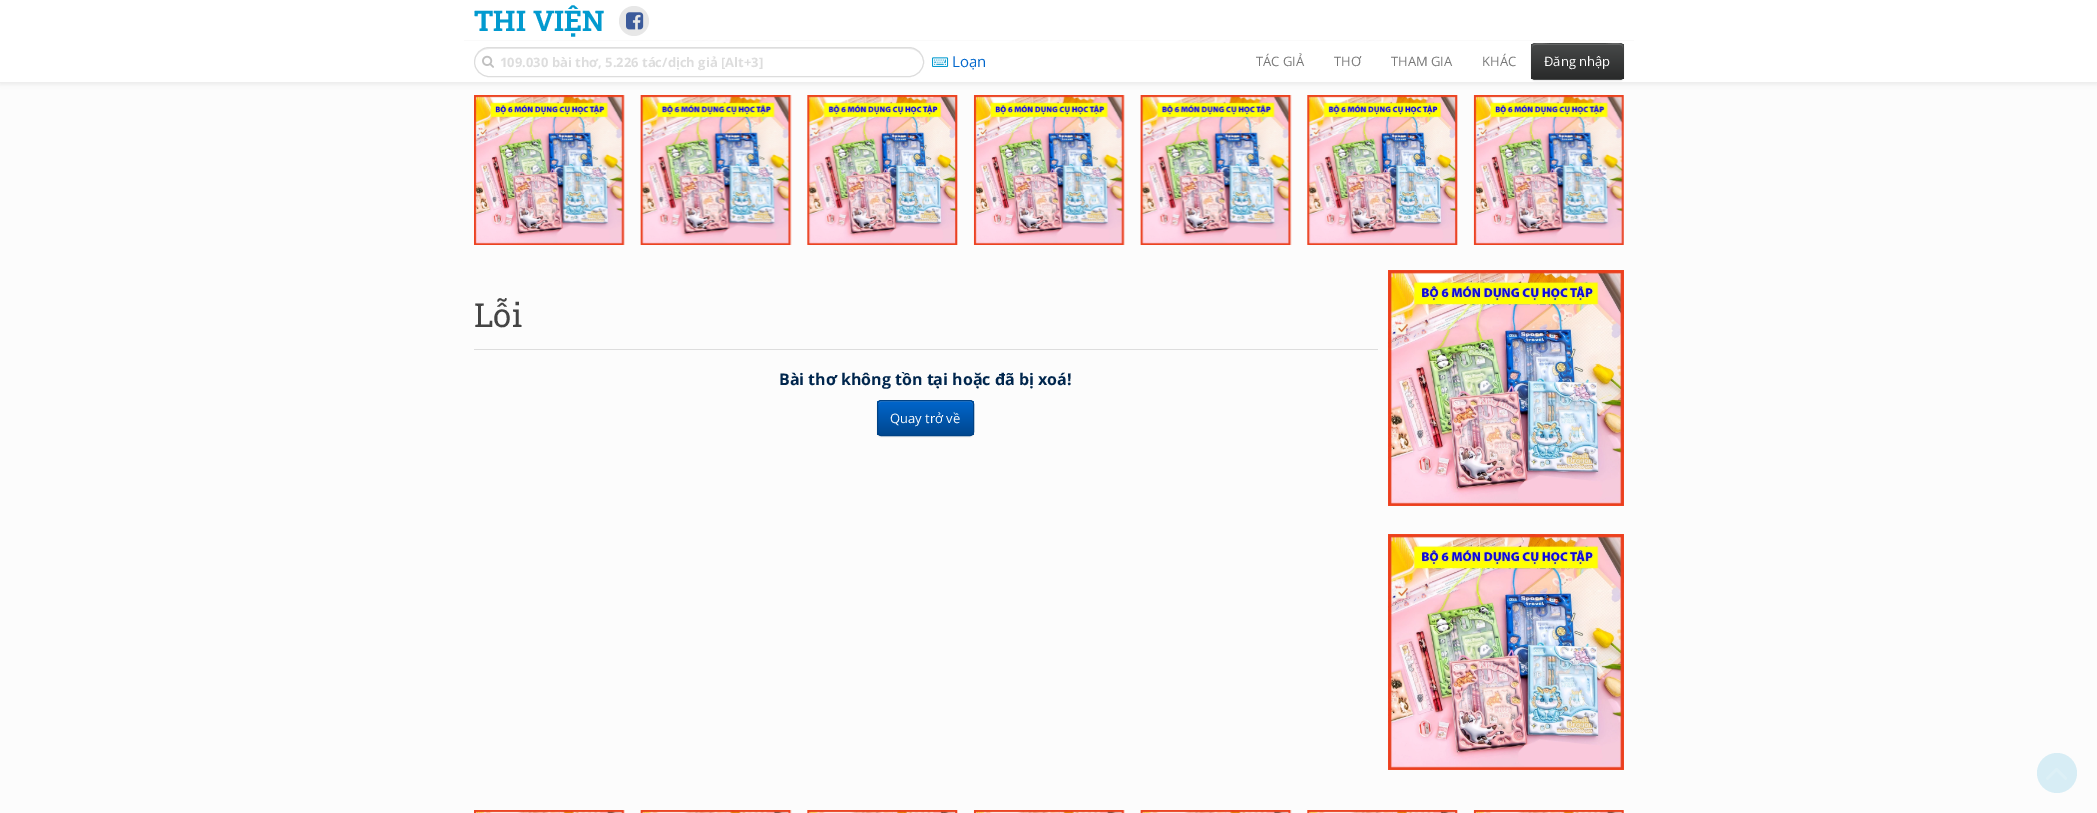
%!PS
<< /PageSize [2097 813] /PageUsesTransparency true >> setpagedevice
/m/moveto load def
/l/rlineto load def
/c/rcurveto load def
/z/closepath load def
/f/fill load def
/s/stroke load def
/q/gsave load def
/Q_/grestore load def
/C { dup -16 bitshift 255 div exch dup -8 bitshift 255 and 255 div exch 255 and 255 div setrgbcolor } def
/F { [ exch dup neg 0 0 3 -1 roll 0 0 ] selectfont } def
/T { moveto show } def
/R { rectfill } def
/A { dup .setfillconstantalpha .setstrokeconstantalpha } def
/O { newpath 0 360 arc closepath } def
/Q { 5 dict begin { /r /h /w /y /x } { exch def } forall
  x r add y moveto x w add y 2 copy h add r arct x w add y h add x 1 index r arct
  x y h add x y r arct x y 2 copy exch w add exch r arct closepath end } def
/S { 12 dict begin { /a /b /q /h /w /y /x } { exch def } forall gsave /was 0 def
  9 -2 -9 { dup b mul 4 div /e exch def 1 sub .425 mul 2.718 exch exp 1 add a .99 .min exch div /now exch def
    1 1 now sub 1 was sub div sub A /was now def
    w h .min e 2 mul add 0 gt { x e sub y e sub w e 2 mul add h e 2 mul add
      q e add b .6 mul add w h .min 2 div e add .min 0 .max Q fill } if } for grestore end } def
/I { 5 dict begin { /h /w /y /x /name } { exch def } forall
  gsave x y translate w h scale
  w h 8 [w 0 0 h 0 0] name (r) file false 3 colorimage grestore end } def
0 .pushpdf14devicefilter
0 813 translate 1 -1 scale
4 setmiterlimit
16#FCFCFC C
0 0 2097 813 R
16#000000 C
0 1 2097 83 0 2.5 .07 S
16#FFFFFF C
0 0 2097 82 R
16#EEEEEE C
0 82 2097 1 R
16#FAFAFA C
464 40 1170 1 R
/RobotoSlab-Bold 28.5 F
16#029ACF C
(THI VIỆN) 474 31 T
16#E7E7E7 C
634 21 15 O f
(1.rgb) 626 12 18 18 I
16#ECECEC C
489 49 m 420 0 l 8 0 14 6 14 13 c 0 -4 -2 -9 -6 -12 c -2 -1 -5 -2 -8 -2 c -420 0 l -8 0 -14 7 -14 14 c 0 -7 6 -13 14 -13 c z f
16#DDDDDD C
474.5 47.5 449 29 14.5 Q s
(2.rgb) 482 55 12 13 I
/OpenSans-Bold 13 F
(109.030 bài thơ, 5.226 tác/dịch giả [Alt+3]) 500 67 T
(3.rgb) 932 57 17 10 I
/OpenSans-Regular 15 F
16#0066CC C
(Loạn) 952 67 T
/OpenSans-Regular 13 F
16#777777 C
(TÁC GIẢ) 1256 66 T
(THƠ) 1334 66 T
(THAM GIA) 1391 66 T
(KHÁC) 1482 66 T
16#000000 C
1531 44 93 37 4 .5 .07 S
16#474949 C
1531 43 93 37 4 Q f
q
1531 43 93 37 4 Q clip newpath
q 1531 44 m 93 0 l 0 35 l -93 0 l z clip newpath
<< /ShadingType 2 /ColorSpace /DeviceRGB /Coords [1578 44 1578 79] /Extend [true true] /Function << /FunctionType 2 /Domain [0 1] /C0 [.278 .286 .286] /C1 [.161 .165 .165] /N 1 >> >> shfill Q_
Q_
16#636464 C
1535 45 m 85 0 l 2 0 3 1 3 3 c 0 -8 -14 -4 -17 -4 c -57 0 l -3 0 -17 -4 -17 4 c 0 -2 1 -3 3 -3 c z f
16#FFFFFF C
(Đăng nhập) 1544 66 T
16#D7EDF5 C
2057 773 20 O f
(4.rgb) 2046 768 21 12 I
(5.rgb) 474 95 1150 150 I
16#DDDDDD C
474 349 904 1 R
/RobotoSlab-Regular 33 F
16#444444 C
(Lỗi) 474 327 T
/OpenSans-Bold 16 F
16#00264D C
(Bài thơ không tồn tại hoặc đã bị xoá!) 779 385 T
16#000000 C
877 401 97 36 4 .5 .07 S
q
877 400 97 36 4 Q clip newpath
q 877 401 m 97 0 l 0 34 l -97 0 l z clip newpath
<< /ShadingType 2 /ColorSpace /DeviceRGB /Coords [926 401 926 435] /Extend [true true] /Function << /FunctionType 2 /Domain [0 1] /C0 [0 .4 .8] /C1 [0 .278 .561] /N 1 >> >> shfill Q_
Q_
16#267DD3 C
881 402 m 89 0 l 2 0 3 1 3 3 c 0 -8 -15 -4 -18 -4 c -59 0 l -3 0 -18 -4 -18 4 c 0 -2 1 -3 3 -3 c z f
16#004285 C
877.5 400.5 96 35 3.5 Q s
/OpenSans-Regular 13 F
16#FFFFFF C
(Quay trở về) 890 423 T
(6.rgb) 1388 270 236 500 I
(7.rgb) 474 810 1150 3 I
.poppdf14devicefilter showpage
